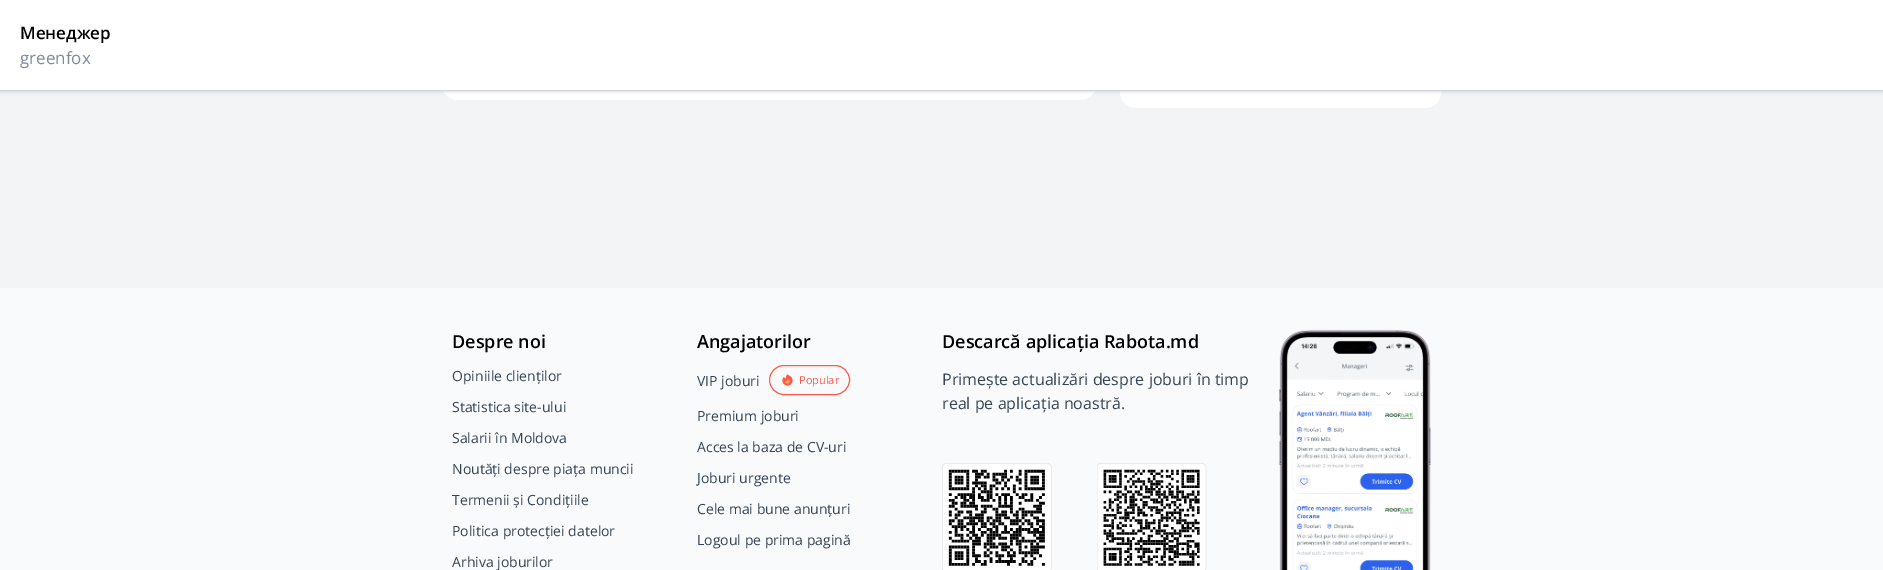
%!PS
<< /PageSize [1883 570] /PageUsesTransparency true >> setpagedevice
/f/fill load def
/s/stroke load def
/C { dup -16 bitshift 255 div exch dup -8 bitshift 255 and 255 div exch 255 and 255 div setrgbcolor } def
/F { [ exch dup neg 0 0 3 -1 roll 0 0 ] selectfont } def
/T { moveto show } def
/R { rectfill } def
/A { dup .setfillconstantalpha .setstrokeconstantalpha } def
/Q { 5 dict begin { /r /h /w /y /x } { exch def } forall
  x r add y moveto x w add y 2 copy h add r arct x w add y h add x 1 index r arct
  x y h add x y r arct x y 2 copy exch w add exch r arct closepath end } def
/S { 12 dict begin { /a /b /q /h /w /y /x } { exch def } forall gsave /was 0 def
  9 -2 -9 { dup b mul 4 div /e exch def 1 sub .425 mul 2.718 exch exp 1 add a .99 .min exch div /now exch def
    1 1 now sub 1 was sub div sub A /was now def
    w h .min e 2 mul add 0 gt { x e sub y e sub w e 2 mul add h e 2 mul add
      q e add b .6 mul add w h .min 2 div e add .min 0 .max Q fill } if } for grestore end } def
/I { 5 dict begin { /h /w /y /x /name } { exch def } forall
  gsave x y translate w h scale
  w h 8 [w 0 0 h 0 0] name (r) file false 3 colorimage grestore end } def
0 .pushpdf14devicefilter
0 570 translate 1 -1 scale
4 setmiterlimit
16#F3F4F6 C
0 0 1883 570 R
16#FFFFFF C
442 -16 654 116 16 Q f
1120 -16 321 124 16 Q f
16#000000 C
0 0 1883 91 0 2 .2 S
16#FFFFFF C
0 0 1883 90 R
16#D1D5DB C
0 90 1883 1 R
/OpenSans-SemiBold 17 F
16#000000 C
(Менеджер) 20 39 T
/OpenSans-Regular 17 F
16#818B9D C
(greenfox) 20 64 T
16#F9FAFB C
0 288 1883 282 R
/OpenSans-SemiBold 18 F
16#000000 C
(Despre noi) 452 348 T
/OpenSans-Regular 14 F
16#354353 C
(Opiniile clienților) 452 381 T
(Statistica site-ului) 452 412 T
(Salarii în Moldova) 452 443 T
(Noutăți despre piața muncii) 452 474 T
(Termenii și Condițiile) 452 505 T
(Politica protecției datelor) 452 536 T
(Arhiva joburilor) 452 567 T
/OpenSans-SemiBold 18 F
16#000000 C
(Angajatorilor) 697 348 T
/OpenSans-Regular 14 F
16#354353 C
(VIP joburi) 697 386 T
16#FC5A4B C
769.5 365.5 80 29 14.5 Q s
(1.rgb) 782 374 11 12 I
/OpenSans-Regular 11 F
(Popular) 799 384 T
/OpenSans-Regular 14 F
16#354353 C
(Premium joburi) 697 421 T
(Acces la baza de CV-uri) 697 452 T
(Joburi urgente) 697 483 T
(Cele mai bune anunțuri) 697 514 T
(Logoul pe prima pagină) 697 545 T
/OpenSans-SemiBold 18 F
16#000000 C
(Descarcă aplicația Rabota.md) 942 348 T
/OpenSans-Regular 16 F
16#354353 C
(Primește actualizări despre joburi în timp) 942 385 T
(real pe aplicația noastră.) 942 409 T
(2.rgb) 942 463 110 107 I
(3.rgb) 1097 463 110 107 I
(4.rgb) 1279 329 152 241 I
.poppdf14devicefilter showpage
